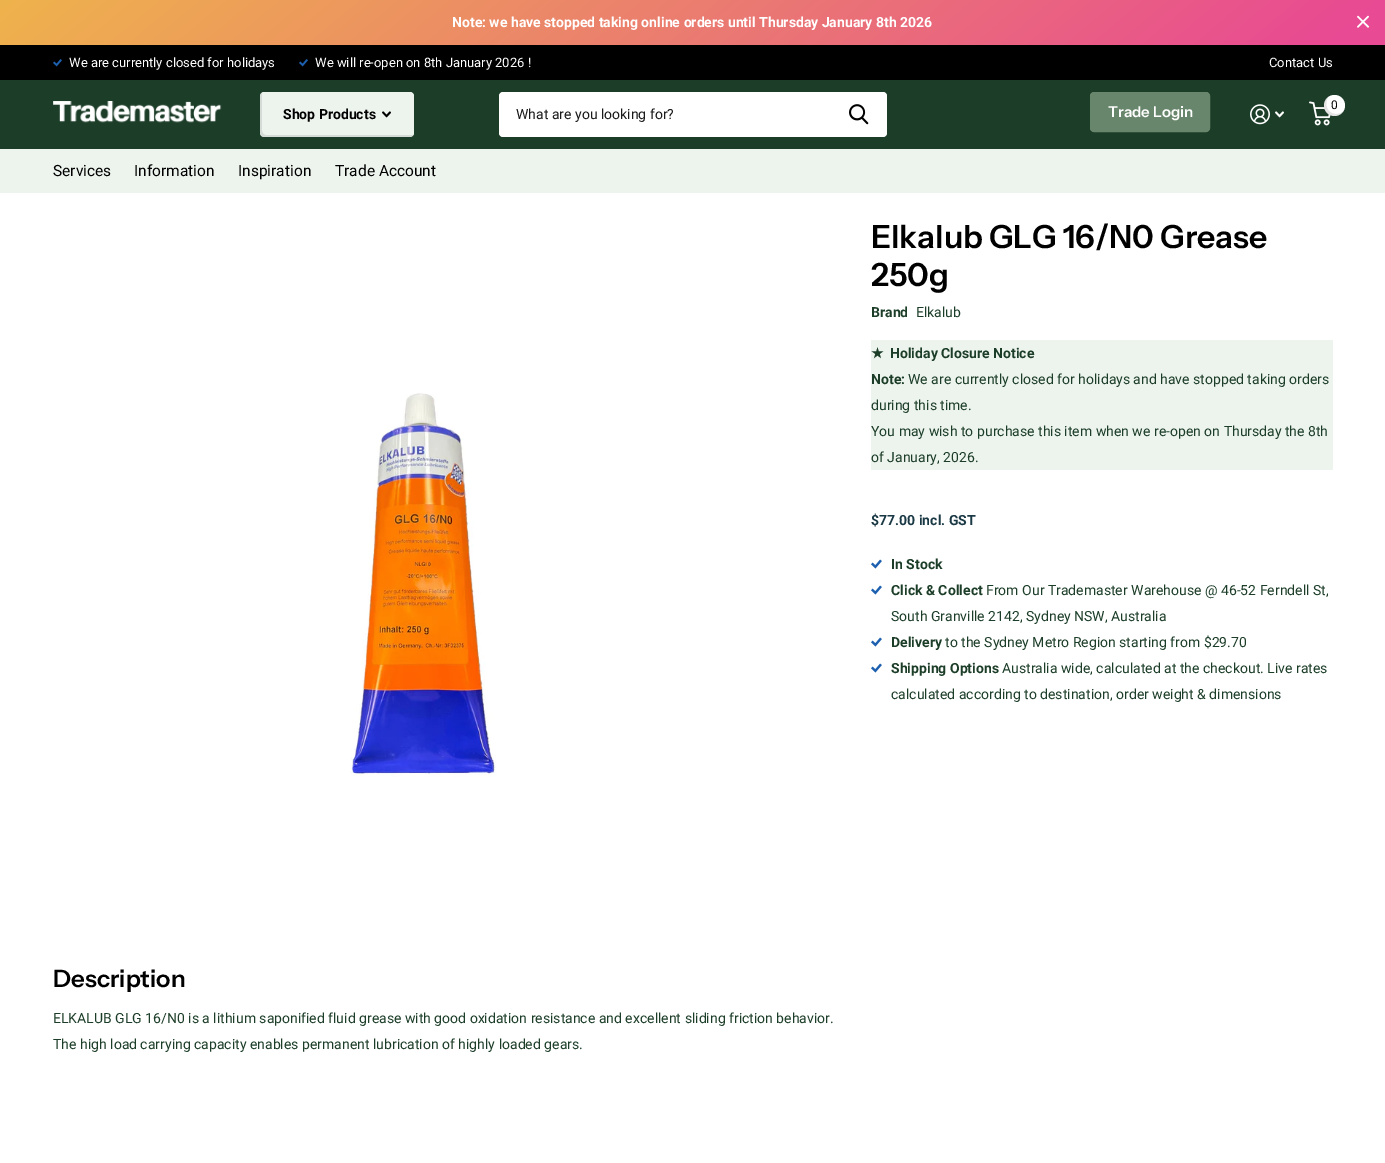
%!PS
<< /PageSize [1385 1163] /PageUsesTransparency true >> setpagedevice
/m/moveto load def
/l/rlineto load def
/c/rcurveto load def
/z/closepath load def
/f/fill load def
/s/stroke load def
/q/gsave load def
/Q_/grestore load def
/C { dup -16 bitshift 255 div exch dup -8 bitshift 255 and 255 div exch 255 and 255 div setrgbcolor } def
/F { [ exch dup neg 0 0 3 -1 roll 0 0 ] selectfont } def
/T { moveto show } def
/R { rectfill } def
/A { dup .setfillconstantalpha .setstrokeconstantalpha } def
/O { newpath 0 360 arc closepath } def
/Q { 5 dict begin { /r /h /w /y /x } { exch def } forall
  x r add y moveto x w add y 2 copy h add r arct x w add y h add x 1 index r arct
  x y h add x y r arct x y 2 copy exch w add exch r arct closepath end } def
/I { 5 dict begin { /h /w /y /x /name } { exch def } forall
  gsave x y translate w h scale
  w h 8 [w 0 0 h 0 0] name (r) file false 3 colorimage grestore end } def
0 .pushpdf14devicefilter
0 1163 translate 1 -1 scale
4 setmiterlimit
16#FFFFFF C
0 0 1385 1163 R
q 0 0 m 1385 0 l 0 45 l -1385 0 l z clip newpath
<< /ShadingType 2 /ColorSpace /DeviceRGB /Coords [990 377 395 -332] /Extend [true true] /Function << /FunctionType 3 /Domain [0 1] /Functions [<< /FunctionType 2 /Domain [0 1] /C0 [.91 .29 .576] /C1 [.91 .29 .576] /N 1 >> << /FunctionType 2 /Domain [0 1] /C0 [.91 .29 .576] /C1 [.937 .702 .298] /N 1 >>] /Bounds [.04] /Encode [0 1 0 1] >> >> shfill Q_
/Roboto-Bold 14 F
(Note: we have stopped taking online orders until Thursday January 8th 2026) 452 27 T
(1.rgb) 1357 15 13 13 I
16#000000 C
0 45 1385 35 R
(2.rgb) 53 59 9 8 I
/Roboto-Regular 13 F
16#FFFFFF C
(We are currently closed for holidays) 69 67 T
(2.rgb) 299 59 9 8 I
(We will re-open on 8th January 2026 !) 315 67 T
(Contact Us) 1269 67 T
16#1C3D28 C
0 80 1385 69 R
(3.rgb) 53 101 169 22 I
16#EDF4EE C
260 92 154 45 4 Q f
0.1 A
16#000000 C
262 92 m -1 1 -2 2 -2 4 c 0 37 l 0 2 2 4 4 4 c 146 0 l 2 0 3 -1 4 -2 c -2 0 l -146 0 l -2 0 -4 -2 -4 -4 c 0 -37 l z f
/Roboto-Bold 14 F
1 A
(Shop Products) 283 119 T
(4.rgb) 382 111 9 7 I
16#FFFFFF C
499 92 388 45 4 Q f
/Roboto-Regular 14 F
16#1A1A1A C
(What are you looking for?) 516 119 T
(5.rgb) 849 104 20 21 I
16#68866B C
1090.5 92.5 119 39 3.5 Q q f Q_
s
/InstrumentSans-SemiBold 15 F
16#FFFFFF C
(Trade Login) 1108 117 T
(6.rgb) 1250 104 20 21 I
(7.rgb) 1275 111 9 7 I
(8.rgb) 1309 101 22 25 I
1334.5 105.5 10.5 O f
0.1 A
16#000000 C
1343 111.5 m -1.5 1.5 -4 2.5 -7 2.5 c -9 0 -12 -10.5 -8 -16.5 c -5 3.5 -5.5 11 -1 15.5 c 4.5 4.5 12.5 4 16 -1.5 c z f
/Roboto-Regular 12 F
1 A
(0) 1331 109 T
16#EDF4EE C
0 149 1385 44 R
/Roboto-Regular 15.5 F
16#000000 C
(Services) 53 176 T
(Information) 134 176 T
(Inspiration) 238 176 T
(Trade Account) 335 176 T
/InstrumentSans-SemiBold 32 F
(Elkalub GLG 16/N0 Grease) 871 248 T
(250g) 871 286 T
/Roboto-Bold 14 F
16#1C3D28 C
(Brand) 871 317 T
/Roboto-Regular 14 F
(Elkalub) 916 317 T
16#EDF4EE C
871 340 462 130 R
/DejaVuSans-Bold 14 F
16#1C3D28 C
(★) 871 358 T
/Roboto-Bold 14 F
(Holiday Closure Notice) 890 358 T
(Note:) 871 384 T
/Roboto-Regular 14 F
(We are currently closed for holidays and have stopped taking orders) 908 384 T
(during this time.) 871 410 T
(You may wish to purchase this item when we re-open on Thursday the 8th) 871 436 T
(of January, 2026.) 871 462 T
/Roboto-Bold 14 F
16#1A3945 C
($77.00 incl. GST) 871 525 T
(9.rgb) 871 559 11 10 I
16#1C3D28 C
(In Stock) 891 569 T
(9.rgb) 871 585 11 10 I
(Click & Collect) 891 595 T
/Roboto-Regular 14 F
(From Our Trademaster Warehouse @ 46-52 Ferndell St,) 986 595 T
(South Granville 2142, Sydney NSW, Australia) 891 621 T
(9.rgb) 871 637 11 10 I
/Roboto-Bold 14 F
(Delivery) 891 647 T
/Roboto-Regular 14 F
(to the Sydney Metro Region starting from $29.70) 945 647 T
(9.rgb) 871 663 11 10 I
/Roboto-Bold 14 F
(Shipping Options) 891 673 T
/Roboto-Regular 14 F
(Australia wide, calculated at the checkout. Live rates) 1002 673 T
(calculated according to destination, order weight & dimensions) 891 699 T
(10.rgb) 350 393 147 384 I
/InstrumentSans-SemiBold 24 F
16#000000 C
(Description) 53 987 T
/Roboto-Regular 14 F
16#1C3D28 C
(ELKALUB GLG 16/N0 is a lithium saponified fluid grease with good oxidation resistance and excellent sliding friction behavior.) 53 1023 T
(The high load carrying capacity enables permanent lubrication of highly loaded gears.) 53 1049 T
.poppdf14devicefilter showpage
